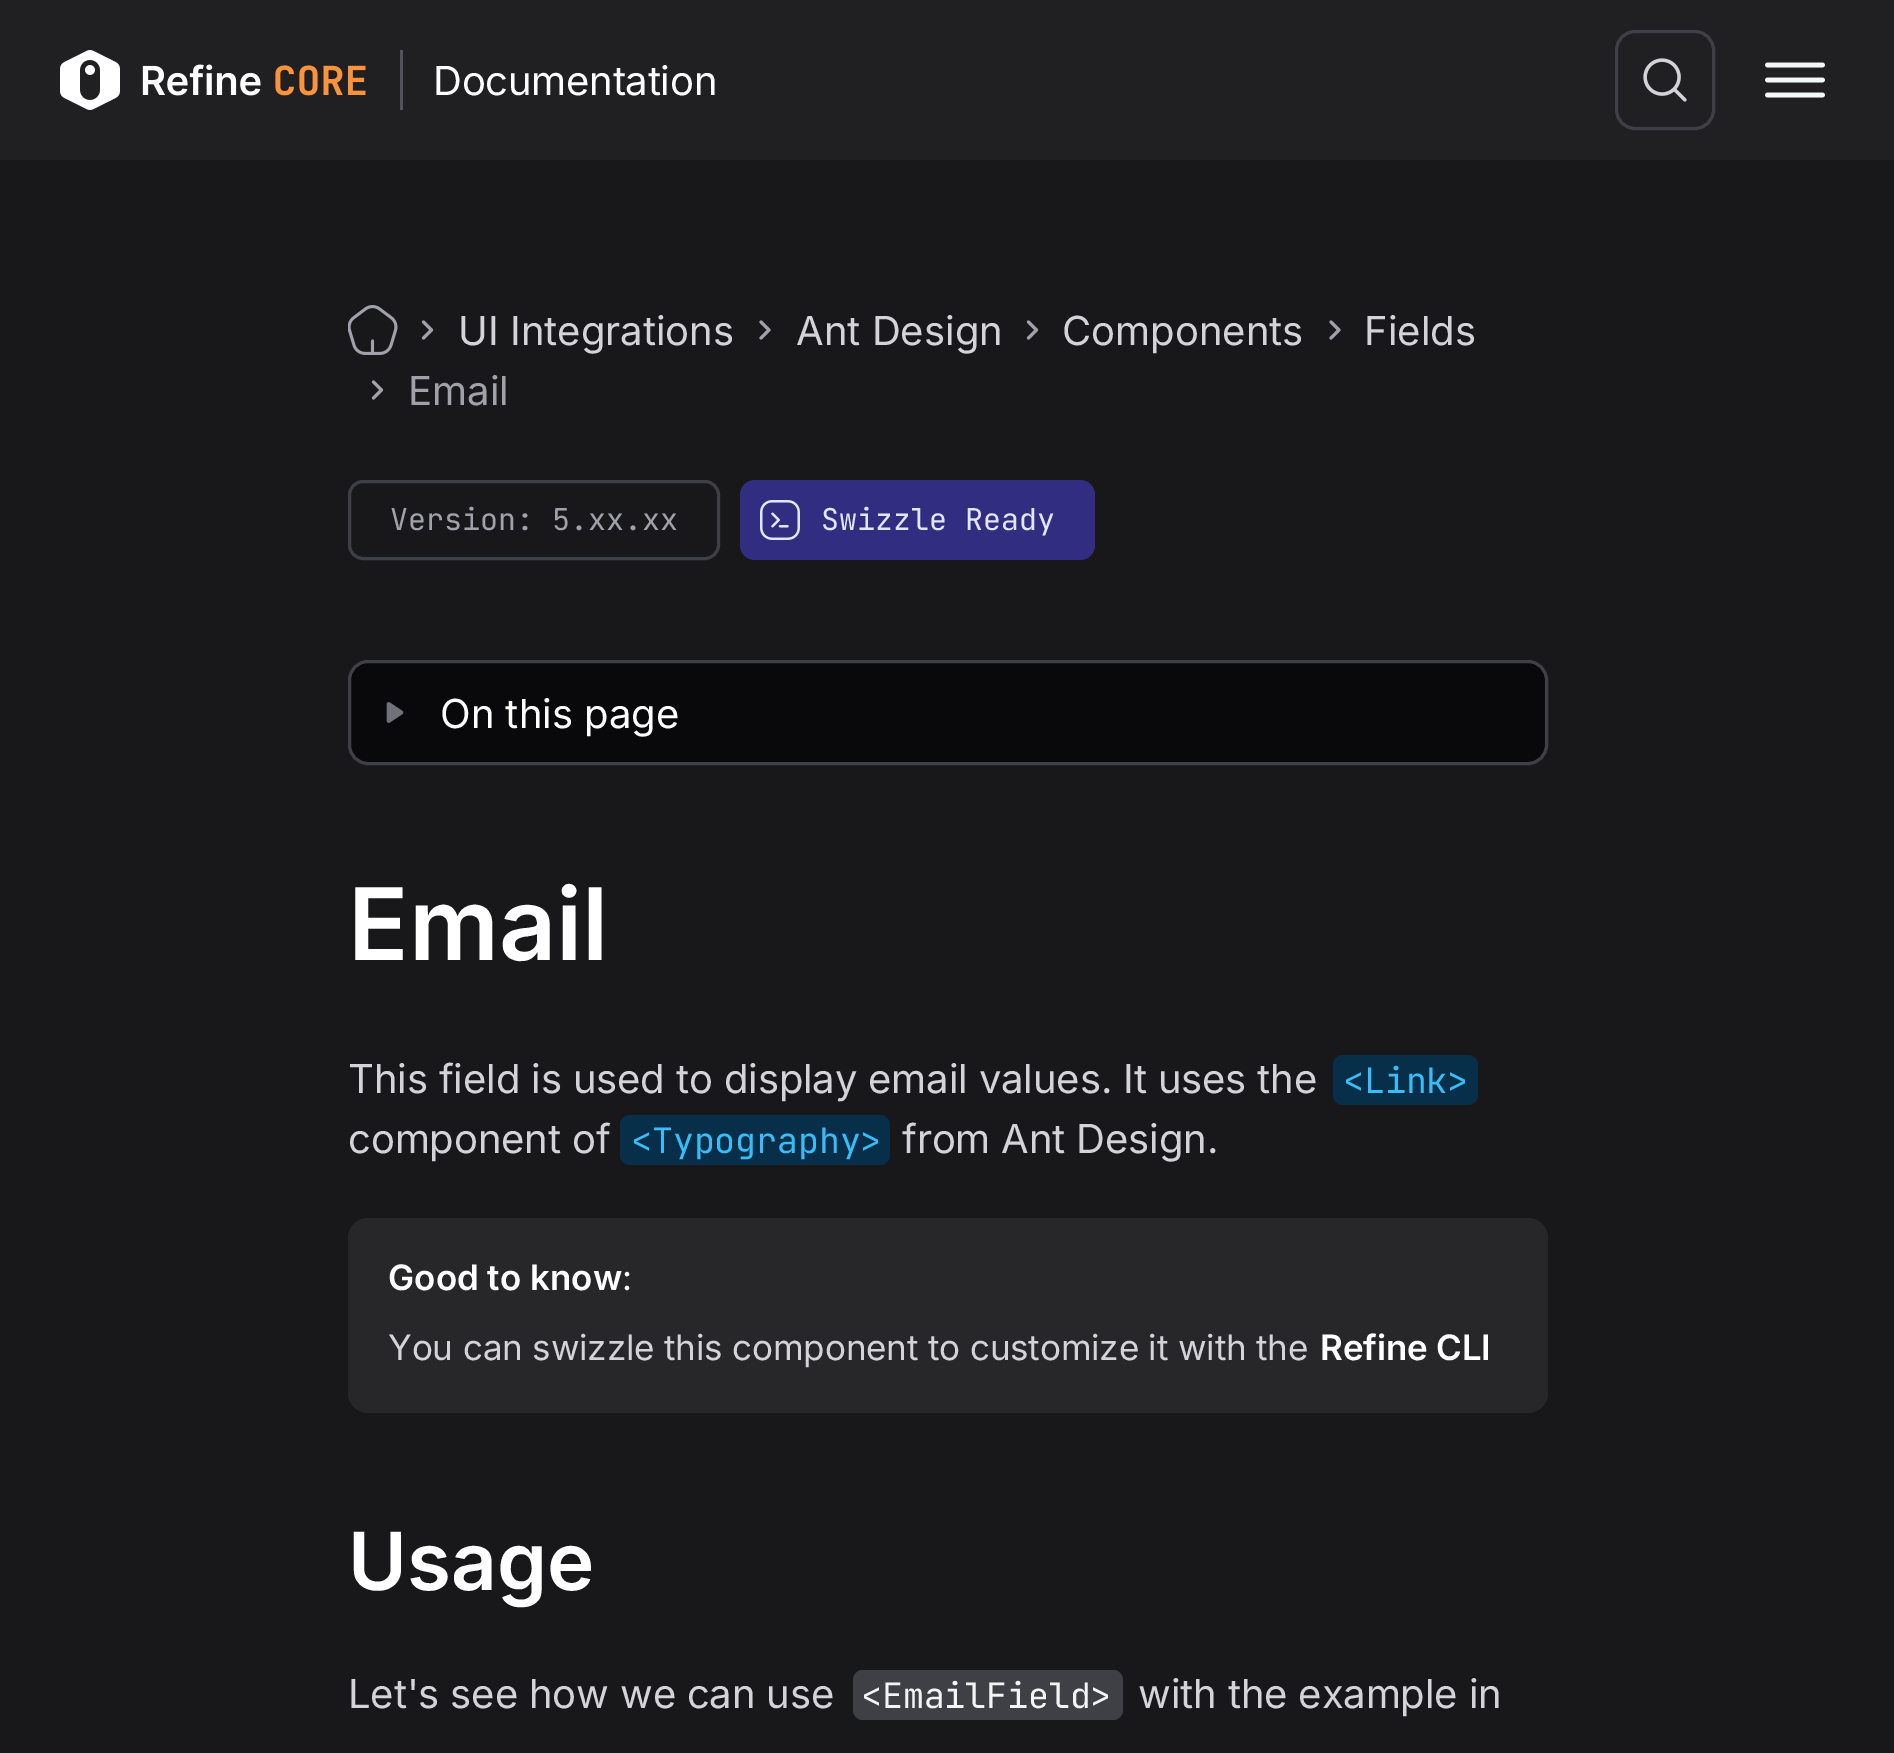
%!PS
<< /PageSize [1894 1753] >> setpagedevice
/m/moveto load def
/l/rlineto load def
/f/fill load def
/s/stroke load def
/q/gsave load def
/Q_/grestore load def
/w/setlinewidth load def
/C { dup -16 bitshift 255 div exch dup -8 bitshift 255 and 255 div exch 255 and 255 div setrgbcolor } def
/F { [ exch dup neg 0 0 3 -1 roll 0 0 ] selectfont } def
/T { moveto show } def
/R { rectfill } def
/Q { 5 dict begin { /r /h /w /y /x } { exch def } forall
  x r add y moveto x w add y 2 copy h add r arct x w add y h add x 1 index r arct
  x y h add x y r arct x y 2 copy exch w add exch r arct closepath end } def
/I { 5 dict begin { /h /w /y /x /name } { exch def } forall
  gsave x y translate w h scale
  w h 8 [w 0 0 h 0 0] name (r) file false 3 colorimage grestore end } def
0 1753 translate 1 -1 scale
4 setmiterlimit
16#18181B C
0 0 1894 1753 R
16#202023 C
0 0 1894 160 R
(1.rgb) 60 50 306 60 I
16#52525B C
400 50 3 60 R
/Inter-Regular 40 F
16#FFFFFF C
433 95 m -.25 0 (Documentation) ashow
16#3F3F46 C
3 w
1616.5 31.5 97 97 18.5 Q s
(2.rgb) 1643 58 44 44 I
(3.rgb) 1765 62 60 36 I
(4.rgb) 348 305 50 50 I
16#A1A1AA C
3.1 w
1 setlinecap
1 setlinejoin
423.5 322 m 8 8 l -8 8 l s
16#D4D4D8 C
(UI Integrations) 458 345 T
16#A1A1AA C
761 322 m 8 8 l -8 8 l s
16#D4D4D8 C
(Ant Design) 796 345 T
16#A1A1AA C
1028.5 322 m 8 8 l -8 8 l s
16#D4D4D8 C
(Components) 1062 345 T
16#A1A1AA C
1331 322 m 8 8 l -8 8 l s
16#D4D4D8 C
(Fields) 1364 345 T
16#A1A1AA C
373.5 382 m 8 8 l -8 8 l s
(Email) 408 405 T
16#3F3F46 C
3 w
0 setlinecap
0 setlinejoin
349.5 481.5 369 77 13.5 Q s
/JetBrainsMono-Regular 30 F
16#A1A1AA C
(Version: 5.xx.xx) 390 530 T
16#312E81 C
740 480 355 80 15 Q f
(5.rgb) 760 500 40 40 I
16#E0E7FF C
(Swizzle Ready) 821 530 T
16#09090B C
349.5 661.5 1197 102 18.5 Q q f Q_
16#3F3F46 C
s
(6.rgb) 386 702 18 21 I
/Inter-Regular 40 F
16#FFFFFF C
(On this page) 440 728 T
/Inter-SemiBold 100 F
(Email) 348 960 T
/Inter-Regular 40 F
16#D4D4D8 C
348 1093 m -.15 0 (This field is used to display email values. It uses the) ashow
16#082F49 C
1333 1055 145 50 10 Q f
/JetBrainsMono-Regular 35 F
16#38BDF8 C
1343 1093 m -.15 0 (<Link>) ashow
/Inter-Regular 40 F
16#D4D4D8 C
348 1153 m -.15 0 (component of) ashow
16#082F49 C
620 1115 270 50 10 Q f
/JetBrainsMono-Regular 35 F
16#38BDF8 C
631 1153 m -.15 0 (<Typography>) ashow
/Inter-Regular 40 F
16#D4D4D8 C
902 1153 m -.15 0 (from Ant Design.) ashow
16#27272A C
348 1218 1200 195 20 Q f
/Inter-SemiBold 35 F
16#FFFFFF C
(Good to know) 388 1290 T
/Inter-Regular 35 F
(:) 622 1290 T
16#D4D4D8 C
388 1360 m -.15 0 (You can swizzle this component to customize it with the) ashow
/Inter-SemiBold 35 F
16#FFFFFF C
1320 1360 m -.15 0 (Refine CLI) ashow
/Inter-SemiBold 80 F
(Usage) 348 1590 T
/Inter-Regular 40 F
16#D4D4D8 C
348 1708 m -.15 0 (Let's see how we can use) ashow
16#3F3F46 C
853 1670 270 50 10 Q f
/JetBrainsMono-Regular 35 F
16#F4F4F5 C
861 1708 m -.15 0 (<EmailField>) ashow
/Inter-Regular 40 F
16#D4D4D8 C
1138 1708 m -.15 0 (with the example in) ashow
showpage
